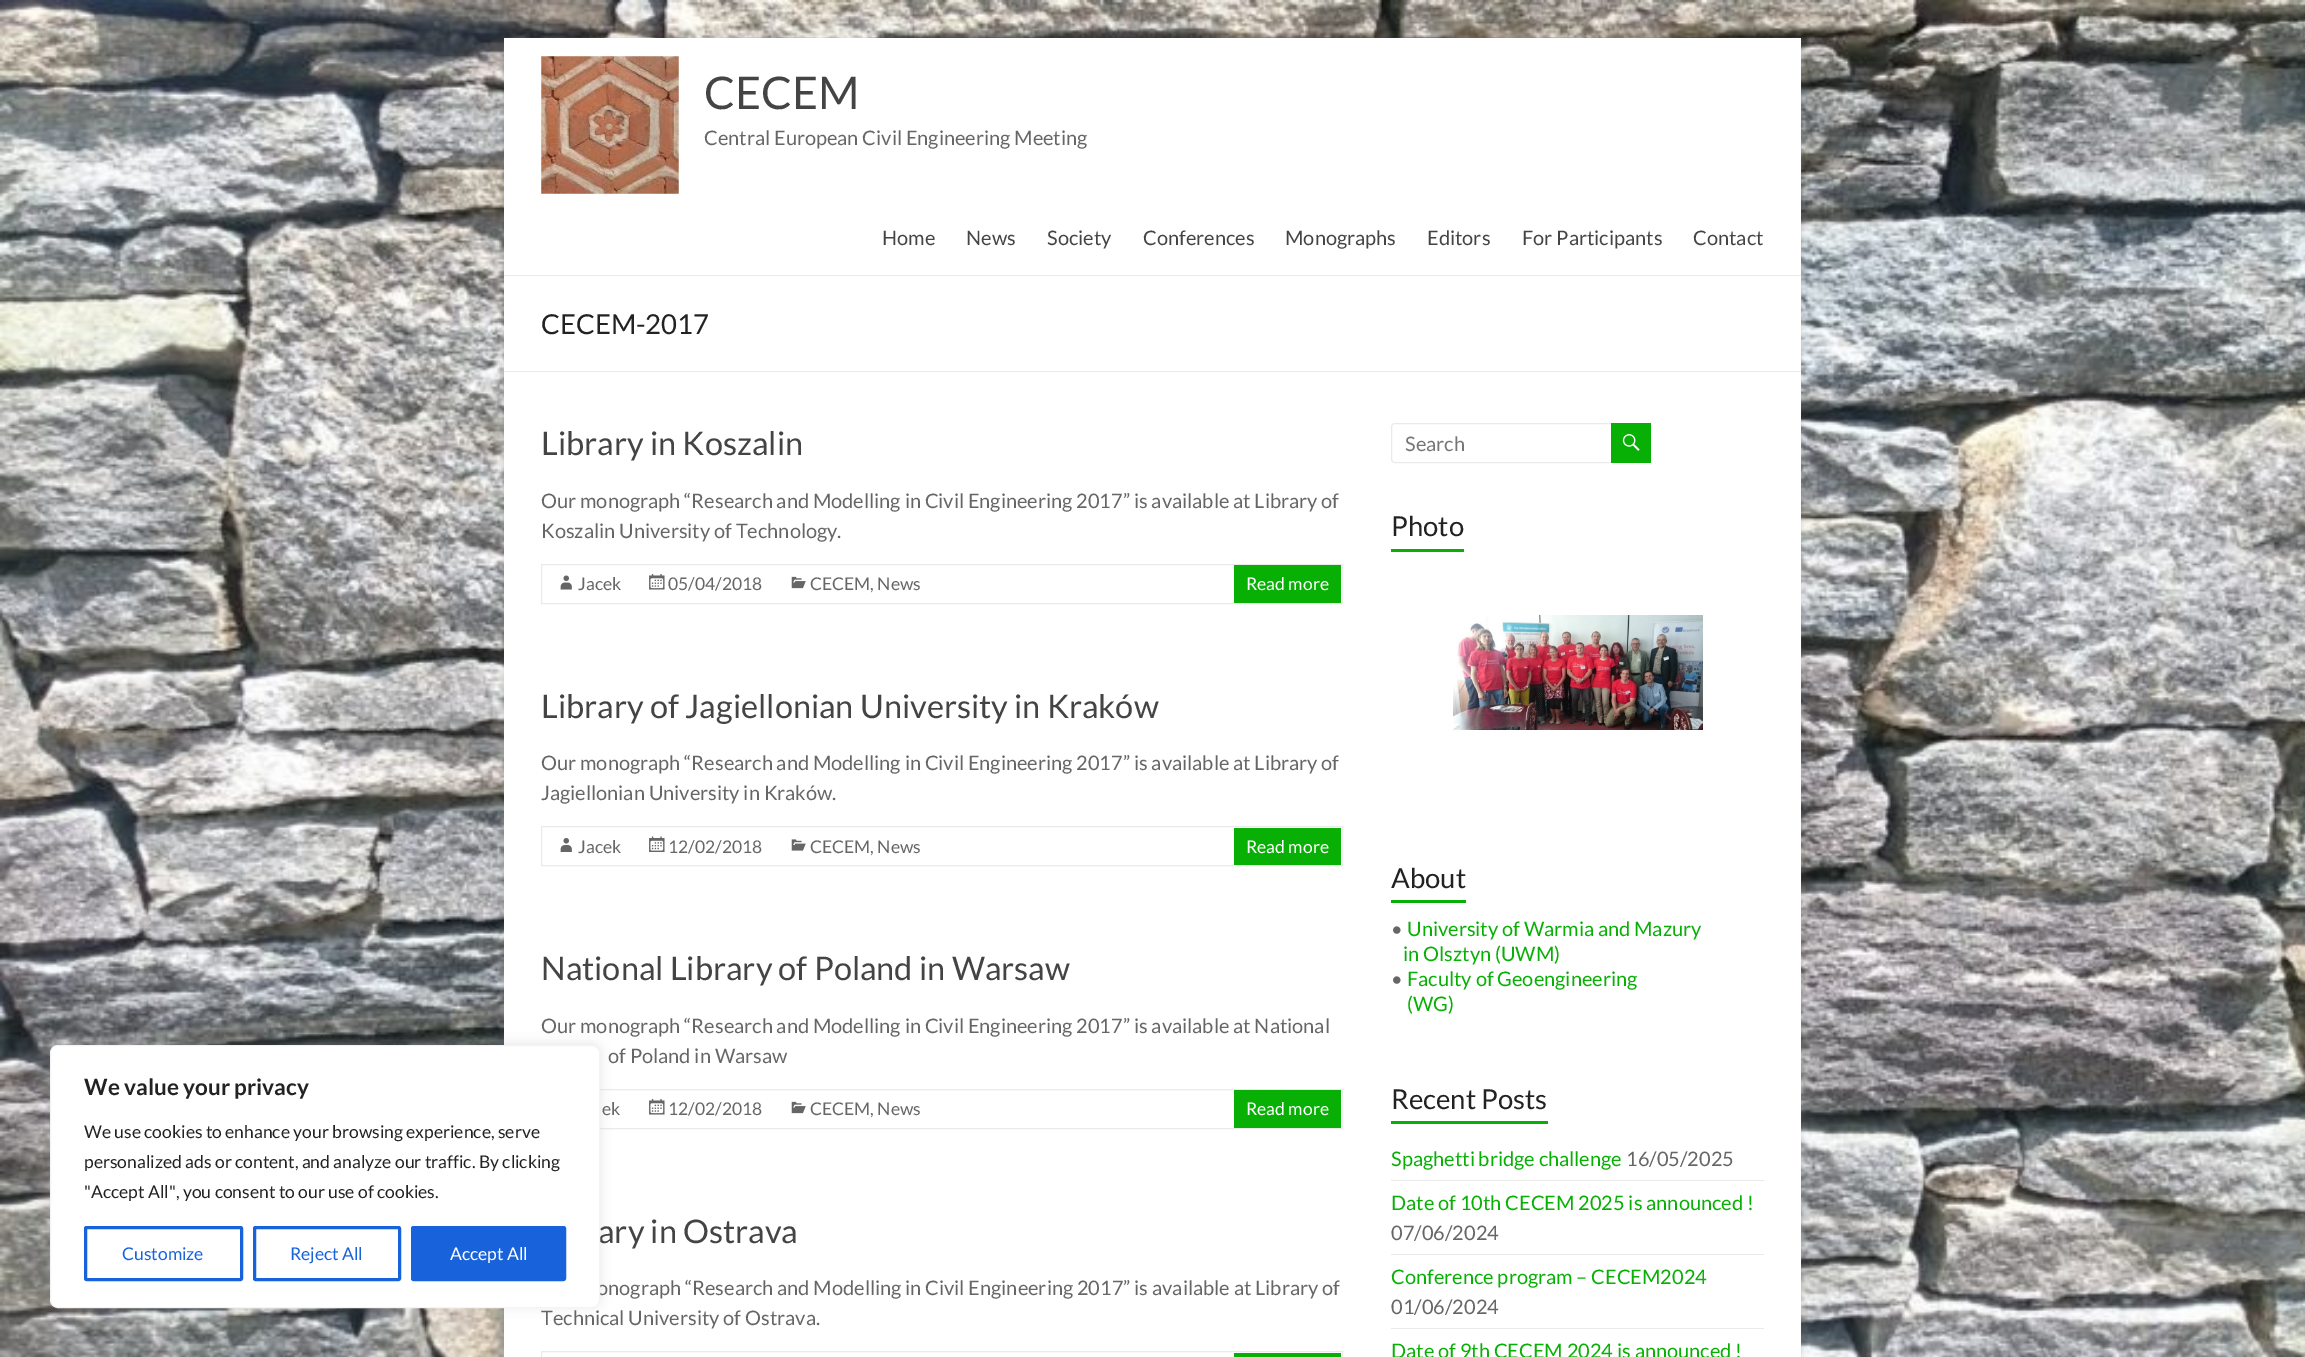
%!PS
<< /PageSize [2305 1357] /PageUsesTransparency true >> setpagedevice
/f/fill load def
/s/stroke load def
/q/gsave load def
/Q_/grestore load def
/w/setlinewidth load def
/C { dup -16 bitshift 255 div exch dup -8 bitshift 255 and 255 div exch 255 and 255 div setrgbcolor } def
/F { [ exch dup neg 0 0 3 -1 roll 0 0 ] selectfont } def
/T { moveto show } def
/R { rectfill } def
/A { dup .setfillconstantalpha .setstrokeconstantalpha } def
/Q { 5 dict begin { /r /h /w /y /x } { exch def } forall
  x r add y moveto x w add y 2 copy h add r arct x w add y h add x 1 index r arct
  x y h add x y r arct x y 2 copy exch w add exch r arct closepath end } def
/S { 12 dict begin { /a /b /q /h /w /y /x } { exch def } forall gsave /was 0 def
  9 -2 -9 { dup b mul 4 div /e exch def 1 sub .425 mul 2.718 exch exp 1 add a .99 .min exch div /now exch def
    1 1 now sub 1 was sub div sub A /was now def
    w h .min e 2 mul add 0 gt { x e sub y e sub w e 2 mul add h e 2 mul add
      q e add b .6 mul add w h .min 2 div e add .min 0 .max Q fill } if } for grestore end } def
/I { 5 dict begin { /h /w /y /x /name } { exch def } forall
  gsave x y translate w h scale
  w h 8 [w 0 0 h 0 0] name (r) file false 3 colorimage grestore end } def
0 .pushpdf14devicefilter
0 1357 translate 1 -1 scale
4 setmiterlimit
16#FFFFFF C
0 0 2305 1357 R
(1.rgb) 0 0 2305 1357 I
16#646464 C
504 40 1297 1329 0 4 .3 S
16#FFFFFF C
504 38 1297 1319 R
16#EAEAEA C
541.5 1089.5 801 39 rectstroke
16#ACABAB C
50 1044 550 262 8 6 .3 S
/Lato-Regular 32.5 F
16#444444 C
(ary in Ostrava) 598 1243 T
/Lato-Regular 20 F
16#666666 C
(onograph “Research and Modelling in Civil Engineering 2017” is available at Library of) 597 1295 T
16#FFFFFF C
50.5 1045.5 549 262 7.5 Q q f Q_
16#F4F4F4 C
s
/Lato-Bold 22.5 F
16#222222 C
(We value your privacy) 84 1095 T
/Lato-Regular 17.5 F
(We use cookies to enhance your browsing experience, serve) 84 1138 T
(personalized ads or content, and analyze our traffic. By clicking) 84 1168 T
("Accept All", you consent to our use of cookies.) 84 1198 T
16#1863DC C
3 w
85.5 1227.5 156 52 1 Q s
(Customize) 122 1260 T
254.5 1227.5 145 52 1 Q s
(Reject All) 290 1260 T
412.5 1227.5 152 52 1 Q q f Q_
s
16#FFFFFF C
(Accept All) 450 1260 T
16#EAEAEA C
504 275 1297 1 R
(2.rgb) 541 56 138 138 I
/Lato-Regular 45 F
16#444444 C
(CECEM) 704 109 T
/Lato-Regular 20 F
16#666666 C
(Central European Civil Engineering Meeting) 704 145 T
16#444444 C
(Home) 882 245 T
(News) 966 245 T
(Society) 1047 245 T
(Conferences) 1143 245 T
(Monographs) 1285 245 T
(Editors) 1427 245 T
(For Participants) 1522 245 T
(Contact) 1693 245 T
16#EAEAEA C
504 371 1297 1 R
/Lato-Regular 27.5 F
16#222222 C
(CECEM-2017) 541 334 T
/Lato-Regular 32.5 F
16#444444 C
(Library in Koszalin) 541 455 T
/Lato-Regular 20 F
16#666666 C
(Our monograph “Research and Modelling in Civil Engineering 2017” is available at Library of) 541 508 T
(Koszalin University of Technology.) 541 538 T
16#EAEAEA C
1 w
541.5 564.5 801 39 rectstroke
(3.rgb) 560 575 12 15 I
/Lato-Regular 17.5 F
16#666666 C
(Jacek) 578 590 T
(4.rgb) 649 574 16 16 I
(05/04/2018) 668 590 T
(5.rgb) 791 576 15 13 I
(CECEM, News) 810 590 T
16#08AF05 C
1234 565 107 38 R
16#FFFFFF C
(Read more) 1246 590 T
/Lato-Regular 32.5 F
16#444444 C
(Library of Jagiellonian University in Kraków) 541 718 T
/Lato-Regular 20 F
16#666666 C
(Our monograph “Research and Modelling in Civil Engineering 2017” is available at Library of) 541 770 T
(Jagiellonian University in Kraków.) 541 800 T
16#EAEAEA C
541.5 826.5 801 39 rectstroke
(6.rgb) 560 838 12 14 I
/Lato-Regular 17.5 F
16#666666 C
(Jacek) 578 853 T
(7.rgb) 649 836 16 16 I
(12/02/2018) 668 853 T
(8.rgb) 791 839 15 12 I
(CECEM, News) 810 853 T
16#08AF05 C
1234 828 107 37 R
16#FFFFFF C
(Read more) 1246 853 T
/Lato-Regular 32.5 F
16#444444 C
(National Library of Poland in Warsaw) 541 980 T
/Lato-Regular 20 F
16#666666 C
(Our monograph “Research and Modelling in Civil Engineering 2017” is available at National) 541 1033 T
(of Poland in Warsaw) 608 1063 T
/Lato-Regular 17.5 F
(ek) 602 1115 T
(4.rgb) 649 1099 16 16 I
(12/02/2018) 668 1115 T
(5.rgb) 791 1101 15 13 I
(CECEM, News) 810 1115 T
16#08AF05 C
1234 1090 107 38 R
16#FFFFFF C
(Read more) 1246 1115 T
/Lato-Regular 20 F
16#666666 C
(Technical University of Ostrava.) 541 1325 T
16#EAEAEA C
541.5 1351.5 801 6 rectstroke
16#08AF05 C
1234 1353 107 4 R
16#EAEAEA C
1391.5 423.5 223 39 3.5 Q s
16#757575 C
(Search) 1405 451 T
16#08AF05 C
1611 423 40 40 R
(9.rgb) 1622 434 18 17 I
/Lato-Regular 27.5 F
16#222222 C
(Photo) 1391 536 T
16#08AF05 C
1391 549 73 3 R
(10.rgb) 1453 615 250 115 I
16#222222 C
(About) 1391 888 T
16#08AF05 C
1391 900 75 3 R
/Lato-Regular 20 F
16#666666 C
(•) 1391 936 T
16#08AF05 C
(University of Warmia and Mazury) 1407 936 T
(in Olsztyn \(UWM\)) 1403 961 T
16#666666 C
(•) 1391 986 T
16#08AF05 C
(Faculty of Geoengineering) 1407 986 T
(\(WG\)) 1407 1011 T
/Lato-Regular 27.5 F
16#222222 C
(Recent Posts) 1391 1109 T
16#08AF05 C
1391 1121 157 3 R
16#EAEAEA C
1391 1180 373 1 R
/Lato-Regular 20 F
16#08AF05 C
(Spaghetti bridge challenge) 1391 1166 T
16#666666 C
(16/05/2025) 1626 1166 T
16#EAEAEA C
1391 1254 373 1 R
16#08AF05 C
(Date of 10th CECEM 2025 is announced !) 1391 1210 T
16#666666 C
(07/06/2024) 1391 1240 T
16#EAEAEA C
1391 1328 373 1 R
16#08AF05 C
(Conference program – CECEM2024) 1391 1284 T
16#666666 C
(01/06/2024) 1391 1314 T
16#08AF05 C
(Date of 9th CECEM 2024 is announced !) 1391 1358 T
.poppdf14devicefilter showpage
